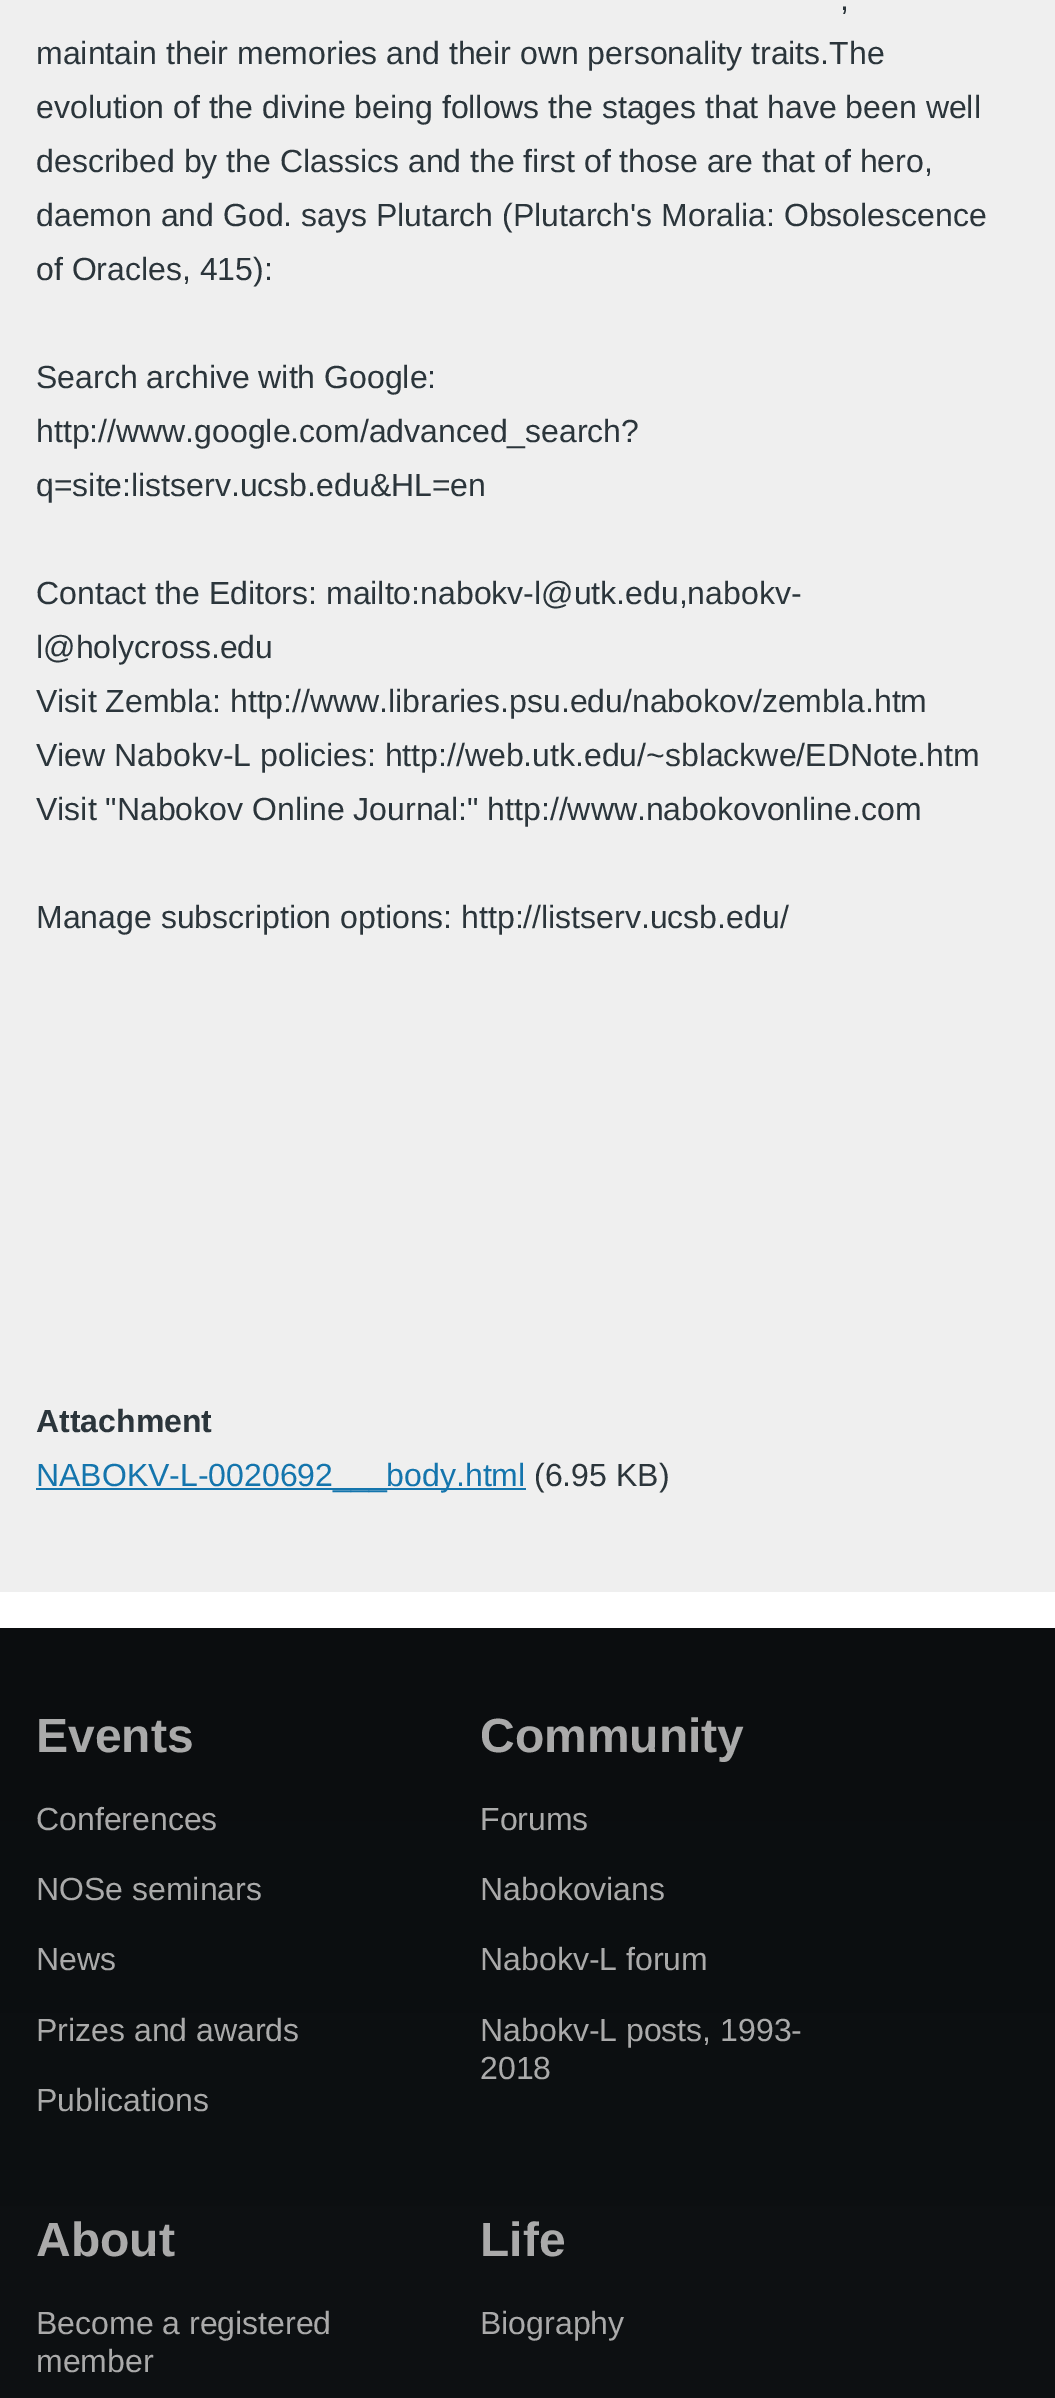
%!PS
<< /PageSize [1055 2398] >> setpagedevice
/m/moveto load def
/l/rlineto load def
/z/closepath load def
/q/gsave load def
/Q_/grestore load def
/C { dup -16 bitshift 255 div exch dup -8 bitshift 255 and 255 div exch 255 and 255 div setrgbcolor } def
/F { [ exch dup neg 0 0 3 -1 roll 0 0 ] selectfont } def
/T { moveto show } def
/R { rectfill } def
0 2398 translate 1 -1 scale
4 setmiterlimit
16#FFFFFF C
0 0 1055 2398 R
16#EFEFEF C
0 0 1055 1592 R
/LiberationSans-Regular 32 F
16#2B353B C
(,) 840 10 T
(maintain their memories and their own personality traits.The) 36 64 T
(evolution of the divine being follows the stages that have been well) 36 118 T
(described by the Classics and the first of those are that of hero,) 36 172 T
(daemon and God. says Plutarch \(Plutarch's Moralia: Obsolescence) 36 226 T
(of Oracles, 415\):) 36 280 T
(Search archive with Google:) 36 388 T
(http://www.google.com/advanced_search?) 36 442 T
(q=site:listserv.ucsb.edu&HL=en) 36 496 T
(Contact the Editors: mailto:nabokv-l@utk.edu,nabokv-) 36 604 T
(l@holycross.edu) 36 658 T
(Visit Zembla: http://www.libraries.psu.edu/nabokov/zembla.htm) 36 712 T
(View Nabokv-L policies: http://web.utk.edu/~sblackwe/EDNote.htm) 36 766 T
(Visit "Nabokov Online Journal:" http://www.nabokovonline.com) 36 820 T
(Manage subscription options: http://listserv.ucsb.edu/) 36 928 T
/LiberationSans-Bold 32 F
(Attachment) 36 1432 T
16#1475AD C
36 1488 490 2 R
/LiberationSans-Regular 32 F
(NABOKV-L-0020692___body.html) 36 1486 T
16#2B353B C
(\(6.95 KB\)) 534 1486 T
q 0 1628 m 1055 0 l 0 770 l -1055 0 l z clip newpath
<< /ShadingType 2 /ColorSpace /DeviceRGB /Coords [528 1628 528 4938] /Extend [true true] /Function << /FunctionType 2 /Domain [0 1] /C0 [.043 .051 .059] /C1 [.094 .114 .125] /N 1 >> >> shfill Q_
/LiberationSans-Bold 48 F
16#AAAAAA C
(Events) 36 1752 T
/LiberationSans-Regular 32 F
(Conferences) 36 1830 T
(NOSe seminars) 36 1900 T
(News) 36 1970 T
(Prizes and awards) 36 2041 T
(Publications) 36 2111 T
/LiberationSans-Bold 48 F
(Community) 480 1752 T
/LiberationSans-Regular 32 F
(Forums) 480 1830 T
(Nabokovians) 480 1900 T
(Nabokv-L forum) 480 1970 T
(Nabokv-L posts, 1993-) 480 2041 T
(2018) 480 2079 T
/LiberationSans-Bold 48 F
(About) 36 2256 T
/LiberationSans-Regular 32 F
(Become a registered) 36 2334 T
(member) 36 2372 T
/LiberationSans-Bold 48 F
(Life) 480 2256 T
/LiberationSans-Regular 32 F
(Biography) 480 2334 T
showpage
